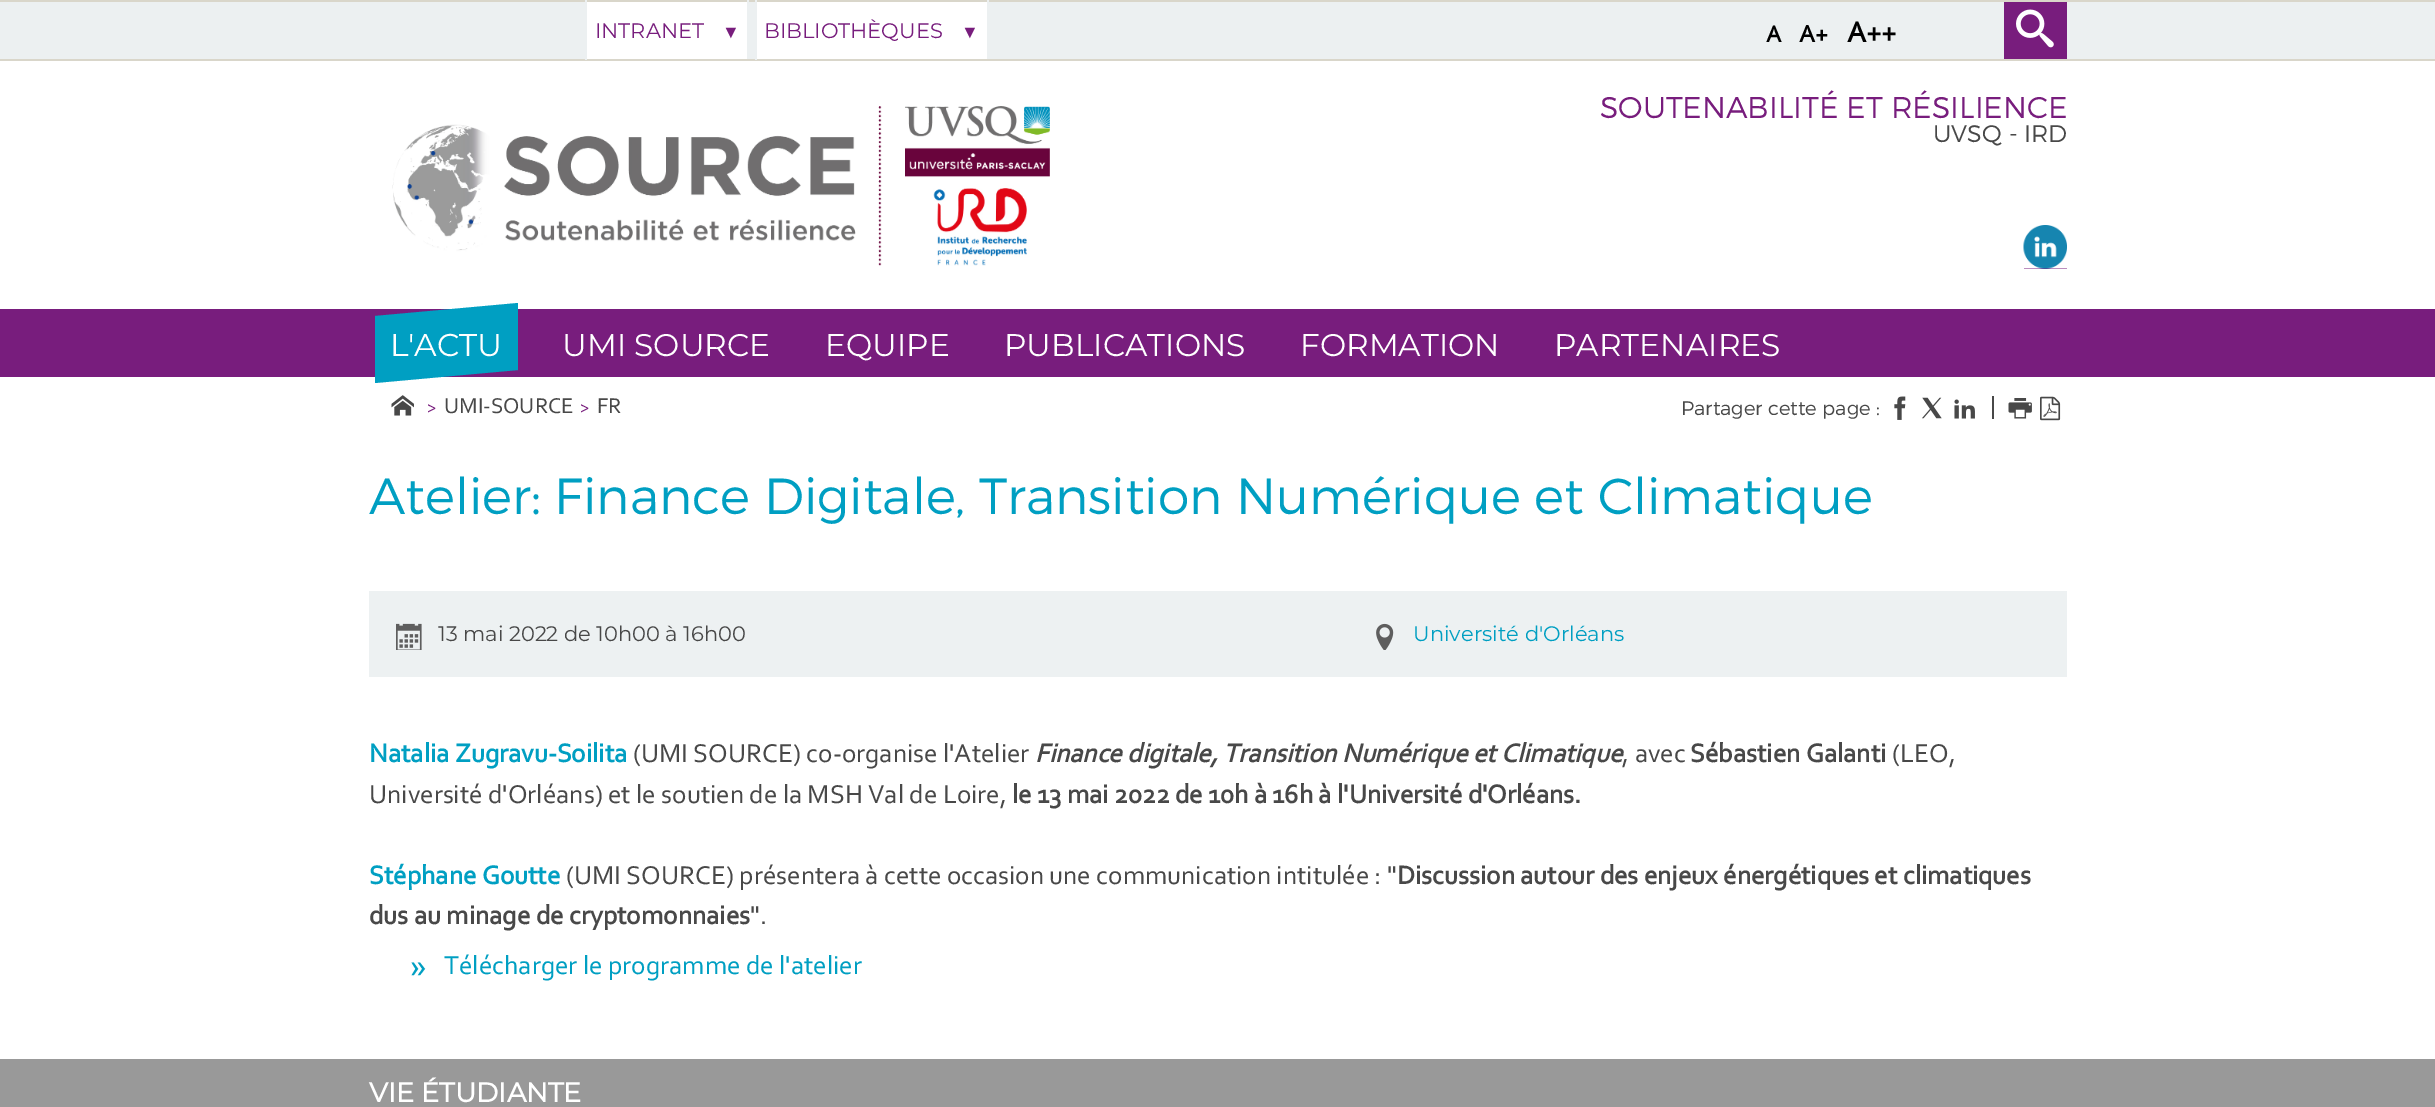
%!PS
<< /PageSize [2435 1107] >> setpagedevice
/m/moveto load def
/l/rlineto load def
/z/closepath load def
/f/fill load def
/C { dup -16 bitshift 255 div exch dup -8 bitshift 255 and 255 div exch 255 and 255 div setrgbcolor } def
/F { [ exch dup neg 0 0 3 -1 roll 0 0 ] selectfont } def
/T { moveto show } def
/R { rectfill } def
/I { 5 dict begin { /h /w /y /x /name } { exch def } forall
  gsave x y translate w h scale
  w h 8 [w 0 0 h 0 0] name (r) file false 3 colorimage grestore end } def
0 1107 translate 1 -1 scale
4 setmiterlimit
16#FFFFFF C
0 0 2435 1107 R
16#ECF0F1 C
0 2 2435 57 R
16#FFFFFF C
587 2 160 57 R
16#D9D6CA C
0 0 2435 2 R
0 59 2435 2 R
16#ECF0F1 C
747 0 2 60 R
16#D9D6CA C
747 59 2 1 R
16#ECF0F1 C
585 0 2 60 R
/Montserrat-Thin 21 F
16#781D7D C
(INTRANET) 595 38 T
/LiberationSerif-Regular 18 F
(▼) 722 38 T
16#FFFFFF C
757 2 230 57 R
16#ECF0F1 C
987 0 2 60 R
16#D9D6CA C
987 59 2 1 R
16#ECF0F1 C
755 0 2 60 R
/Montserrat-Thin 21 F
16#781D7D C
(BIBLIOTHÈQUES) 764 38 T
/LiberationSerif-Regular 18 F
(▼) 961 38 T
/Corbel-Bold 24 F
16#000000 C
(A) 1766 42 T
/Corbel-Bold 25 F
(A+) 1799 42 T
/Corbel-Bold 30 F
(A++) 1847 42 T
16#781D7D C
2004 2 63 57 R
(1.rgb) 2016 9 38 39 I
(2.rgb) 392 106 658 160 I
/Montserrat-Light 30 F
(SOUTENABILITÉ ET RÉSILIENCE) 1600 118 T
/Montserrat-Light 24 F
16#484848 C
(UVSQ - IRD) 1933 142 T
16#781D7D C
2024 268 43 1 R
(3.rgb) 2023 225 44 44 I
0 309 2435 68 R
16#009FC2 C
375 316 m 143 -13 l 0 67 l -143 13 l z f
/Montserrat-Thin 31.5 F
16#FFFFFF C
390 356 m -.25 0 (L'ACTU) ashow
/Montserrat-Thin 31.25 F
(UMI SOURCE) 562 356 T
(EQUIPE) 825 356 T
(PUBLICATIONS) 1004 356 T
(FORMATION) 1300 356 T
(PARTENAIRES) 1554 356 T
(4.rgb) 391 395 23 21 I
/Corbel-Regular 18 F
16#781D7D C
(>) 427 413 T
/Corbel-Regular 22.5 F
16#484848 C
(UMI-SOURCE) 444 413 T
/Corbel-Regular 18 F
16#781D7D C
(>) 580 413 T
/Corbel-Regular 22.5 F
16#484848 C
(FR) 597 413 T
/Montserrat-Light 19.5 F
(Partager cette page :) 1681 415 T
(5.rgb) 1894 396 12 24 I
(6.rgb) 1922 397 20 22 I
(7.rgb) 1954 399 21 20 I
1992 396 2 23 R
(8.rgb) 2008 398 24 21 I
(9.rgb) 2040 396 21 25 I
/Montserrat-Light 50.55 F
16#009FC2 C
(Atelier: Finance Digitale, Transition Numérique et Climatique) 369 514 T
16#EDF1F2 C
369 591 1698 86 R
(10.rgb) 396 623 26 27 I
/Montserrat-Thin 21 F
16#484848 C
(13 mai 2022 de 10h00 à 16h00) 438 641 T
(11.rgb) 1376 623 18 27 I
16#009FC2 C
(Université d'Orléans) 1413 641 T
/Corbel-Bold 27 F
(Natalia Zugravu-Soilita) 369 762 T
/Corbel-Regular 27 F
16#484848 C
(\(UMI SOURCE\) co-organise l'Atelier) 633 762 T
/Corbel-BoldItalic 27 F
(Finance digitale, Transition Numérique et Climatique) 1035 762 T
/Corbel-Regular 27 F
(, avec) 1622 762 T
/Corbel-Bold 27 F
(Sébastien Galanti) 1690 762 T
/Corbel-Regular 27 F
(\(LEO,) 1892 762 T
(Université d'Orléans\) et le soutien de la MSH Val de Loire,) 369 803 T
/Corbel-Bold 27 F
(le 13 mai 2022 de 10h à 16h à l'Université d'Orléans.) 1012 803 T
16#009FC2 C
(Stéphane Goutte) 369 884 T
/Corbel-Regular 27 F
16#484848 C
(\(UMI SOURCE\) présentera à cette occasion une communication intitulée : ") 566 884 T
/Corbel-Bold 27 F
(Discussion autour des enjeux énergétiques et climatiques) 1397 884 T
(dus au minage de cryptomonnaies) 369 924 T
/Corbel-Regular 27 F
(".) 750 924 T
/Corbel-Regular 35 F
16#009FC2 C
(») 410 977 T
/Corbel-Regular 27 F
(Télécharger le programme de l'atelier) 444 974 T
16#999999 C
0 1059 2435 48 R
/Montserrat-Bold 27 F
16#FFFFFF C
(VIE ÉTUDIANTE) 369 1102 T
showpage
